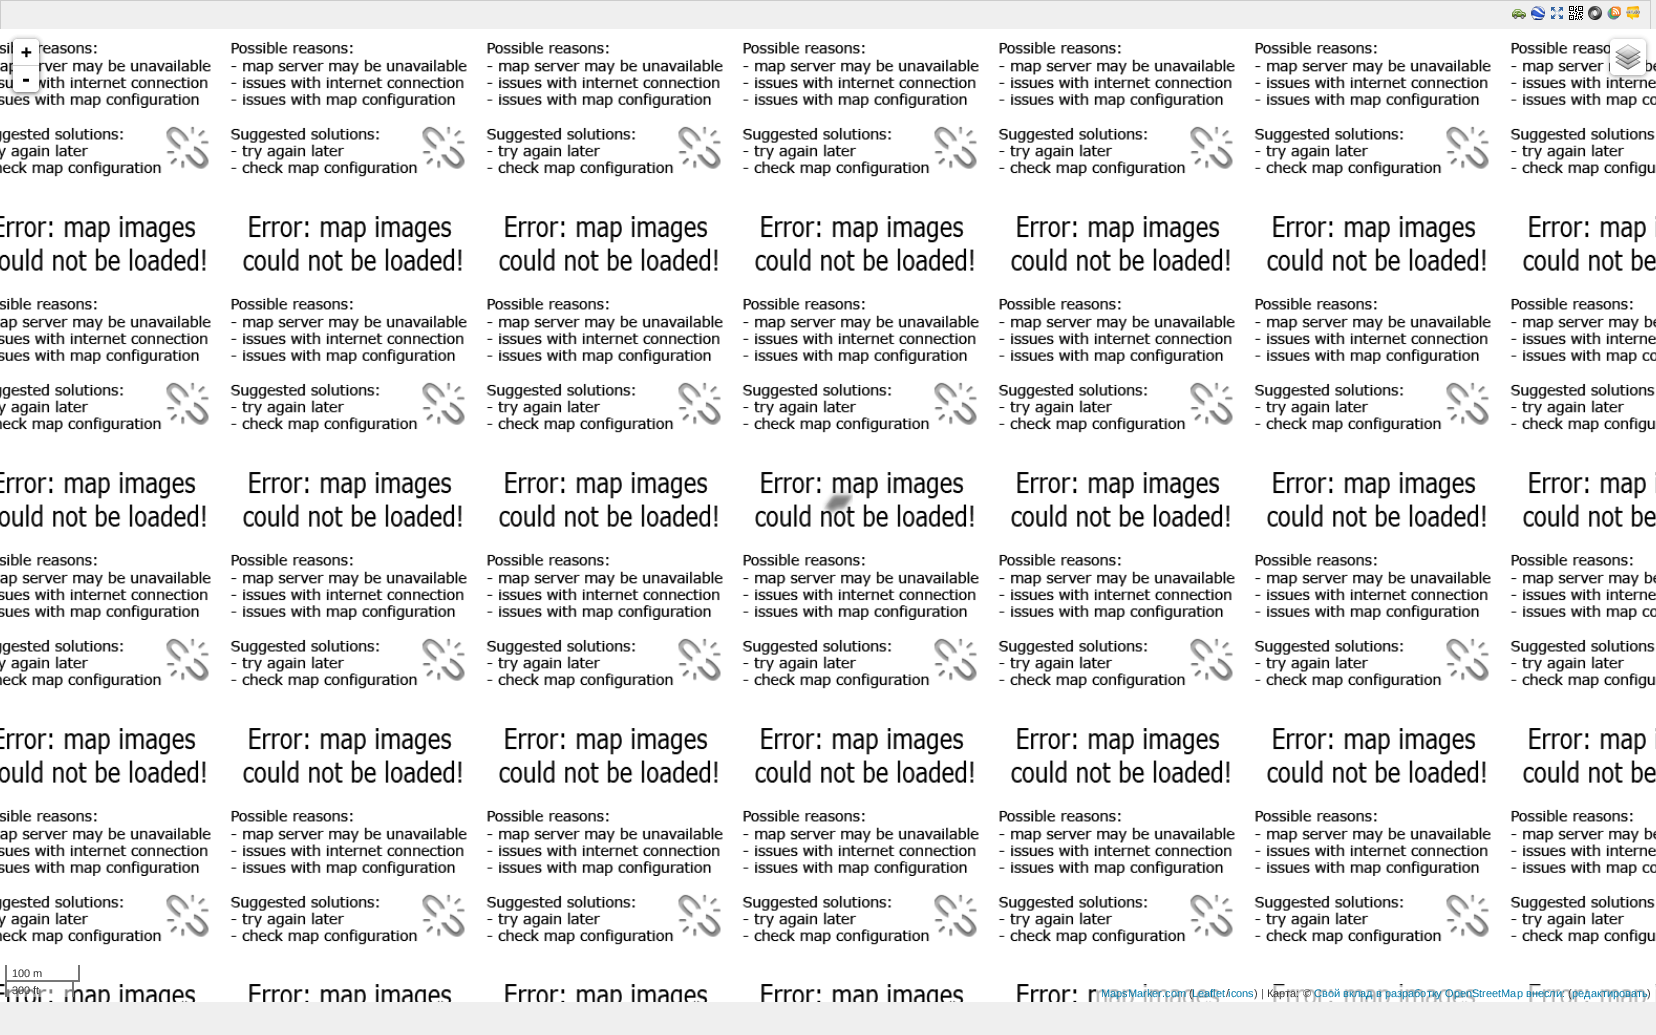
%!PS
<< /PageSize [1656 1035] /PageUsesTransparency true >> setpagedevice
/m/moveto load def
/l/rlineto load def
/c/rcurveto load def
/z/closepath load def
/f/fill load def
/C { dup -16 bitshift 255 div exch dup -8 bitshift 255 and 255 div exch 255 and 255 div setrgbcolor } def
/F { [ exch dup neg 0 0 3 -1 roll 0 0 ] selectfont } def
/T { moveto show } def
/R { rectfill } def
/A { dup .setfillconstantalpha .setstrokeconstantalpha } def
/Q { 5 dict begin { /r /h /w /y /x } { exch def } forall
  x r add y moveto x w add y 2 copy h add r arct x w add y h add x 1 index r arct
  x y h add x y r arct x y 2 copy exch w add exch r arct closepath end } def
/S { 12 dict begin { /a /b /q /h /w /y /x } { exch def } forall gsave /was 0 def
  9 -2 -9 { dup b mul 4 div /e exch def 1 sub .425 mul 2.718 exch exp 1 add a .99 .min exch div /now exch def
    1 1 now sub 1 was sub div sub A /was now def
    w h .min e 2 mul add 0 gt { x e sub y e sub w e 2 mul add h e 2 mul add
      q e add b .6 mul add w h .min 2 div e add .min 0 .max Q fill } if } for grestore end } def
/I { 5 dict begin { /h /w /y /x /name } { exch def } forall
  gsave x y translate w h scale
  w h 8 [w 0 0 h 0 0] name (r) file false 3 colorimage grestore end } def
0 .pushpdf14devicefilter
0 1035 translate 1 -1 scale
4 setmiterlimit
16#EFEFEF C
0 0 1656 1035 R
16#CCCCCC C
0 0 1651 1 R
1650 0 1 29 R
0 0 1 29 R
(1.rgb) 1512 9 14 10 I
(2.rgb) 1531 6 14 14 I
(3.rgb) 1551 7 12 12 I
(4.rgb) 1569 6 14 14 I
(5.rgb) 1588 6 14 14 I
(6.rgb) 1607 6 14 14 I
(7.rgb) 1626 6 14 14 I
(8.rgb) 0 29 220 165 I
(9.rgb) 220 29 256 165 I
(9.rgb) 476 29 256 165 I
(9.rgb) 732 29 256 165 I
(9.rgb) 988 29 256 165 I
(9.rgb) 1244 29 256 165 I
(10.rgb) 1500 29 156 165 I
(11.rgb) 0 194 220 256 I
(12.rgb) 220 194 256 256 I
(12.rgb) 476 194 256 256 I
(12.rgb) 732 194 256 256 I
(12.rgb) 988 194 256 256 I
(12.rgb) 1244 194 256 256 I
(13.rgb) 1500 194 156 256 I
(11.rgb) 0 450 220 256 I
(12.rgb) 220 450 256 256 I
(12.rgb) 476 450 256 256 I
(12.rgb) 732 450 256 256 I
(12.rgb) 988 450 256 256 I
(12.rgb) 1244 450 256 256 I
(13.rgb) 1500 450 156 256 I
(11.rgb) 0 706 220 256 I
(12.rgb) 220 706 256 256 I
(12.rgb) 476 706 256 256 I
(12.rgb) 732 706 256 256 I
(12.rgb) 988 706 256 256 I
(12.rgb) 1244 706 256 256 I
(13.rgb) 1500 706 156 256 I
(14.rgb) 0 962 220 40 I
(15.rgb) 220 962 256 40 I
(15.rgb) 476 962 256 40 I
(15.rgb) 732 962 256 40 I
(15.rgb) 988 962 256 40 I
(15.rgb) 1244 962 256 40 I
(16.rgb) 1500 962 156 40 I
(17.rgb) 822 490 31 24 I
16#000000 C
13 40 26 53 4 2.5 .65 S
16#FFFFFF C
17 39 m 18 0 l 2 0 4 2 4 4 c 0 23 l -26 0 l 0 -23 l 0 -2 2 -4 4 -4 c z f
16#CCCCCC C
13 65 26 1 R
/DejaVuSansMono-Bold 18 F
16#000000 C
(+) 21 58 T
16#FFFFFF C
13 66 m 26 0 l 0 22 l 0 2 -2 4 -4 4 c -18 0 l -2 0 -4 -2 -4 -4 c z f
/DejaVuSansMono-Bold 20 F
16#000000 C
(-) 20 86 T
1610 40 36 36 5 2.5 .4 S
16#FFFFFF C
1610 39 36 36 5 Q f
(18.rgb) 1615 44 26 26 I
16#777777 C
78 965 2 17 R
74 980 6 2 R
5 965 2 17 R
/LiberationSans-Regular 11 F
16#333333 C
(100 m) 12 977 T
0.5 A
16#FFFFFF C
7 989 65 8 R
1 A
16#777777 C
5 980 69 2 R
72 980 2 17 R
5 980 2 17 R
16#333333 C
(300 ft) 12 994 T
0.7 A
16#FFFFFF C
1096 985 560 17 R
1 A
16#0078A8 C
(MapsMarker.com) 1101 997 T
16#333333 C
(\() 1189 997 T
16#0078A8 C
(Leaflet icons) 1192 997 T
(Свой вклад в разработку OpenStreetMap внесли:) 1314 997 T
16#333333 C
(/) 1226 997 T
(\) | Карта: ©) 1254 997 T
(\() 1568 997 T
16#0078A8 C
(редактировать) 1572 997 T
16#333333 C
(\)) 1647 997 T
.poppdf14devicefilter showpage
